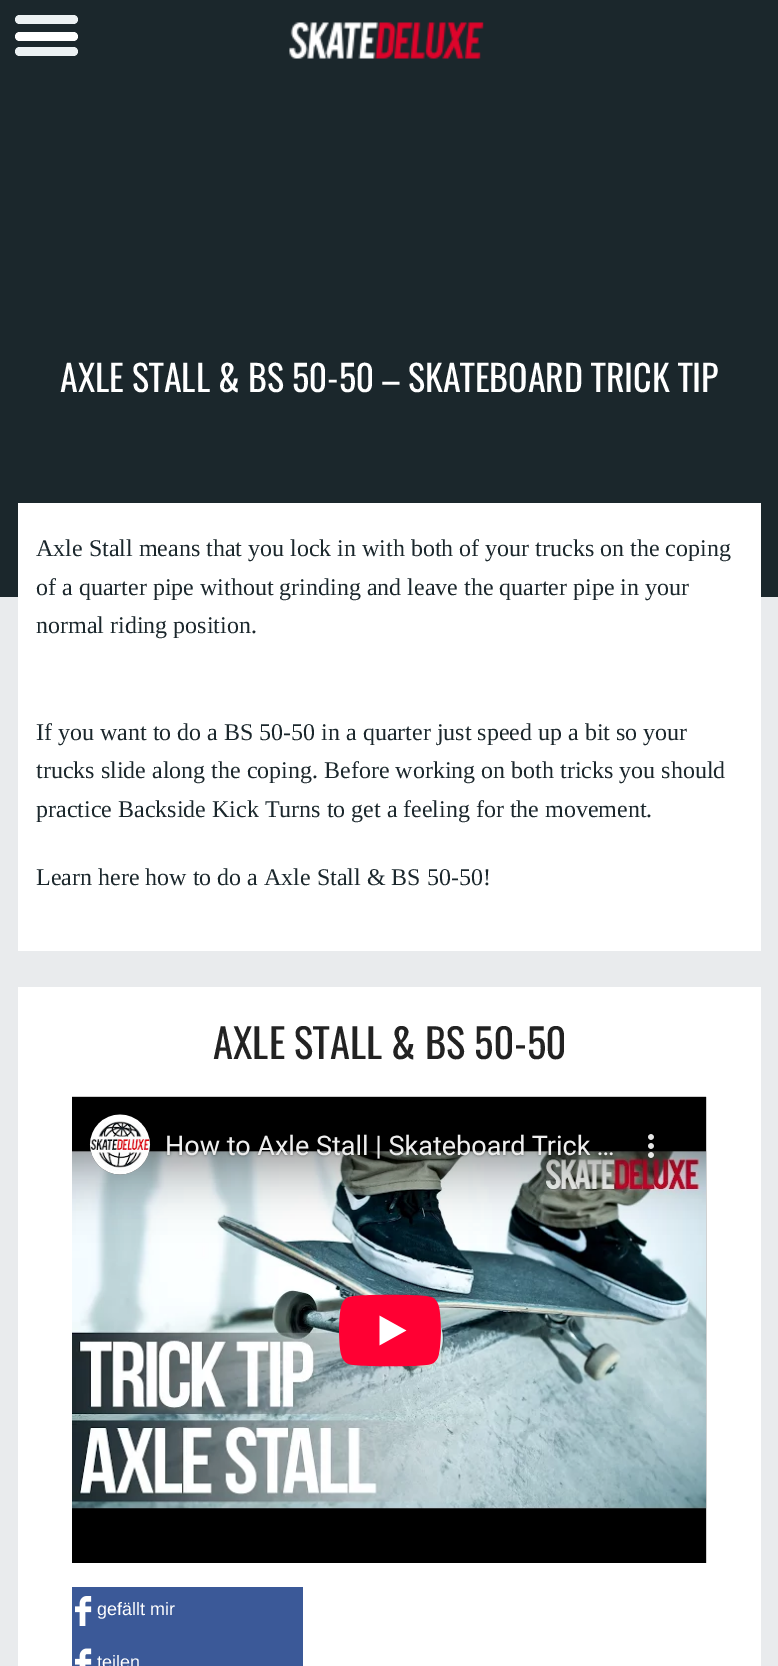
%!PS
<< /PageSize [778 1666] >> setpagedevice
/f/fill load def
/C { dup -16 bitshift 255 div exch dup -8 bitshift 255 and 255 div exch 255 and 255 div setrgbcolor } def
/F { [ exch dup neg 0 0 3 -1 roll 0 0 ] selectfont } def
/T { moveto show } def
/R { rectfill } def
/Q { 5 dict begin { /r /h /w /y /x } { exch def } forall
  x r add y moveto x w add y 2 copy h add r arct x w add y h add x 1 index r arct
  x y h add x y r arct x y 2 copy exch w add exch r arct closepath end } def
/I { 5 dict begin { /h /w /y /x /name } { exch def } forall
  gsave x y translate w h scale
  w h 8 [w 0 0 h 0 0] name (r) file false 3 colorimage grestore end } def
0 1666 translate 1 -1 scale
4 setmiterlimit
16#E9EBED C
0 0 778 1666 R
16#1B272C C
0 0 778 597 R
16#FFFFFF C
15 32 63 9 4.5 Q f
16#ECF1F3 C
15 15 63 9 4.5 Q f
15 47 63 9 4.5 Q f
(1.rgb) 289 22 195 37 I
/Oswald-Regular 36 F
16#FFFFFF C
(AXLE STALL & BS 50-50 – SKATEBOARD TRICK TIP) 60 392 T
18 503 743 448 R
/LiberationSerif-Regular 24 F
16#1B272C C
(Axle Stall means that you lock in with both of your trucks on the coping) 36 556 T
(of a quarter pipe without grinding and leave the quarter pipe in your) 36 595 T
(normal riding position.) 36 633 T
(If you want to do a BS 50-50 in a quarter just speed up a bit so your) 36 740 T
(trucks slide along the coping. Before working on both tricks you should) 36 778 T
(practice Backside Kick Turns to get a feeling for the movement.) 36 817 T
(Learn here how to do a Axle Stall & BS 50-50!) 36 885 T
16#FFFFFF C
18 987 743 679 R
/Oswald-Regular 40.5 F
16#222222 C
(AXLE STALL & BS 50-50) 213 1059 T
(2.rgb) 72 1096 635 467 I
16#3B5998 C
72 1587 231 79 R
(3.rgb) 75 1596 17 30 I
/LiberationSans-Regular 18 F
16#FFFFFF C
(gefällt mir) 97 1615 T
(4.rgb) 75 1648 17 18 I
(teilen) 97 1668 T
showpage
